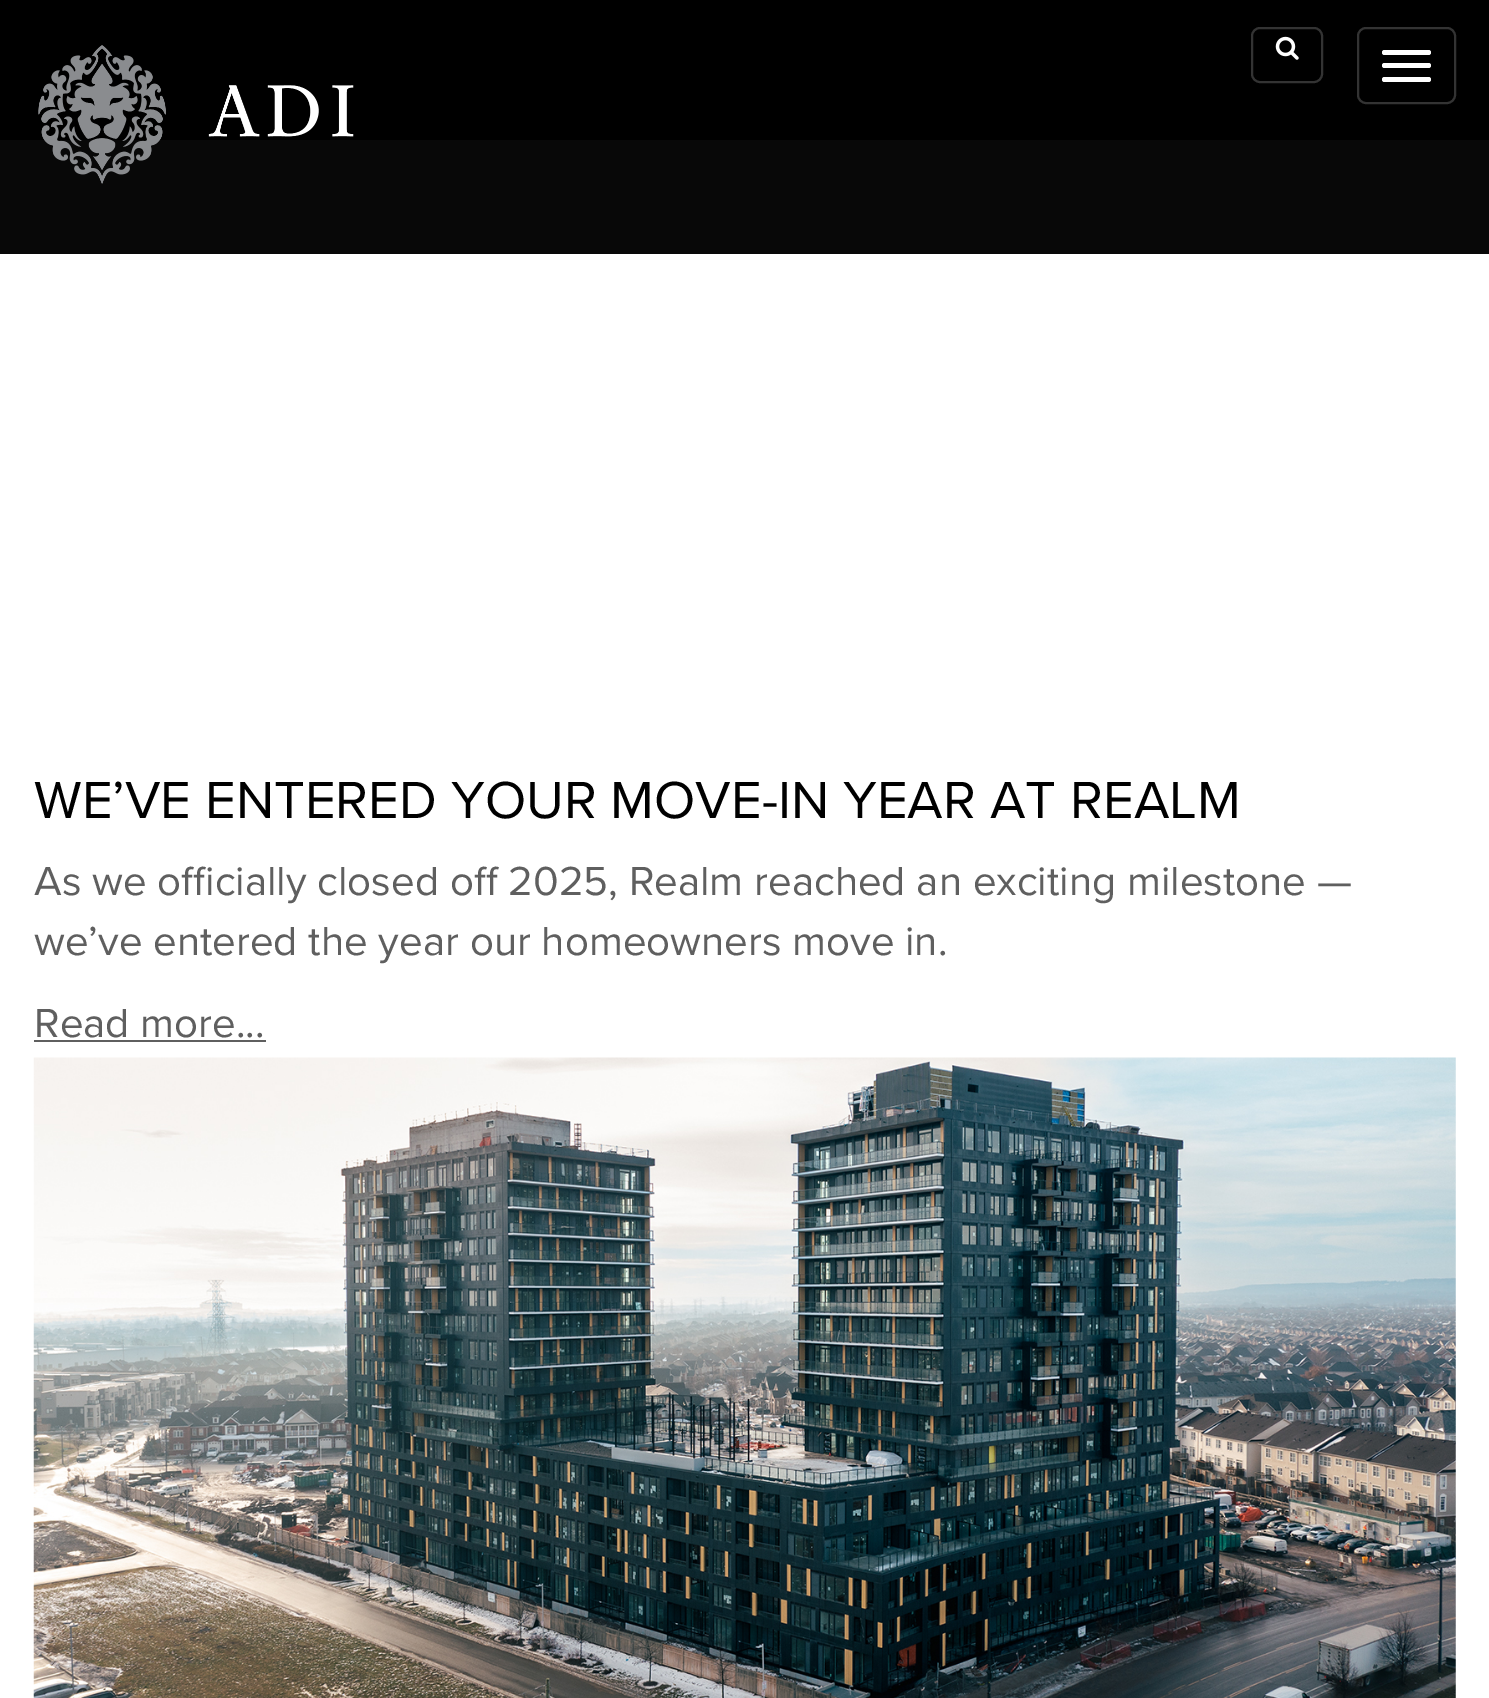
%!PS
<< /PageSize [1489 1698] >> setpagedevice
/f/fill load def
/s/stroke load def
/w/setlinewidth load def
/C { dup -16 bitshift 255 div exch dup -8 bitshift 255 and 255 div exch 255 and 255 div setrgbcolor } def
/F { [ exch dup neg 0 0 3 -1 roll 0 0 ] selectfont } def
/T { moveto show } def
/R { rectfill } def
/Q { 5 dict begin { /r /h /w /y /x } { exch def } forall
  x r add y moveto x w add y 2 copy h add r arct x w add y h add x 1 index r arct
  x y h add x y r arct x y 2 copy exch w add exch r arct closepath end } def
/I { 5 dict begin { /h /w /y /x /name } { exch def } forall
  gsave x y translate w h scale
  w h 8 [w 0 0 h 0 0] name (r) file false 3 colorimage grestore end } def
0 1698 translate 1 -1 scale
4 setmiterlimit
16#FFFFFF C
0 0 1489 1698 R
16#080808 C
0 140 1489 114 R
16#000000 C
0 0 1489 140 R
(1.rgb) 38 45 316 139 I
16#333333 C
2 w
1252 28 70 54 8 Q s
(2.rgb) 1275 36 24 24 I
1358 28 97 75 8 Q s
16#FFFFFF C
1382 50 49 5 2.5 Q f
1382 63 49 5 2.5 Q f
1382 77 49 5 2.5 Q f
/ProximaNova-Regular 54 F
16#000000 C
(WE’VE ENTERED YOUR MOVE-IN YEAR AT REALM) 34 818 T
/ProximaNova-Regular 42 F
16#5F5F5F C
(As we officially closed off 2025, Realm reached an exciting milestone —) 34 895 T
(we’ve entered the year our homeowners move in.) 34 955 T
(Read more...) 34 1037 T
34 1040 232 2 R
(3.rgb) 33 1057 1423 641 I
showpage
